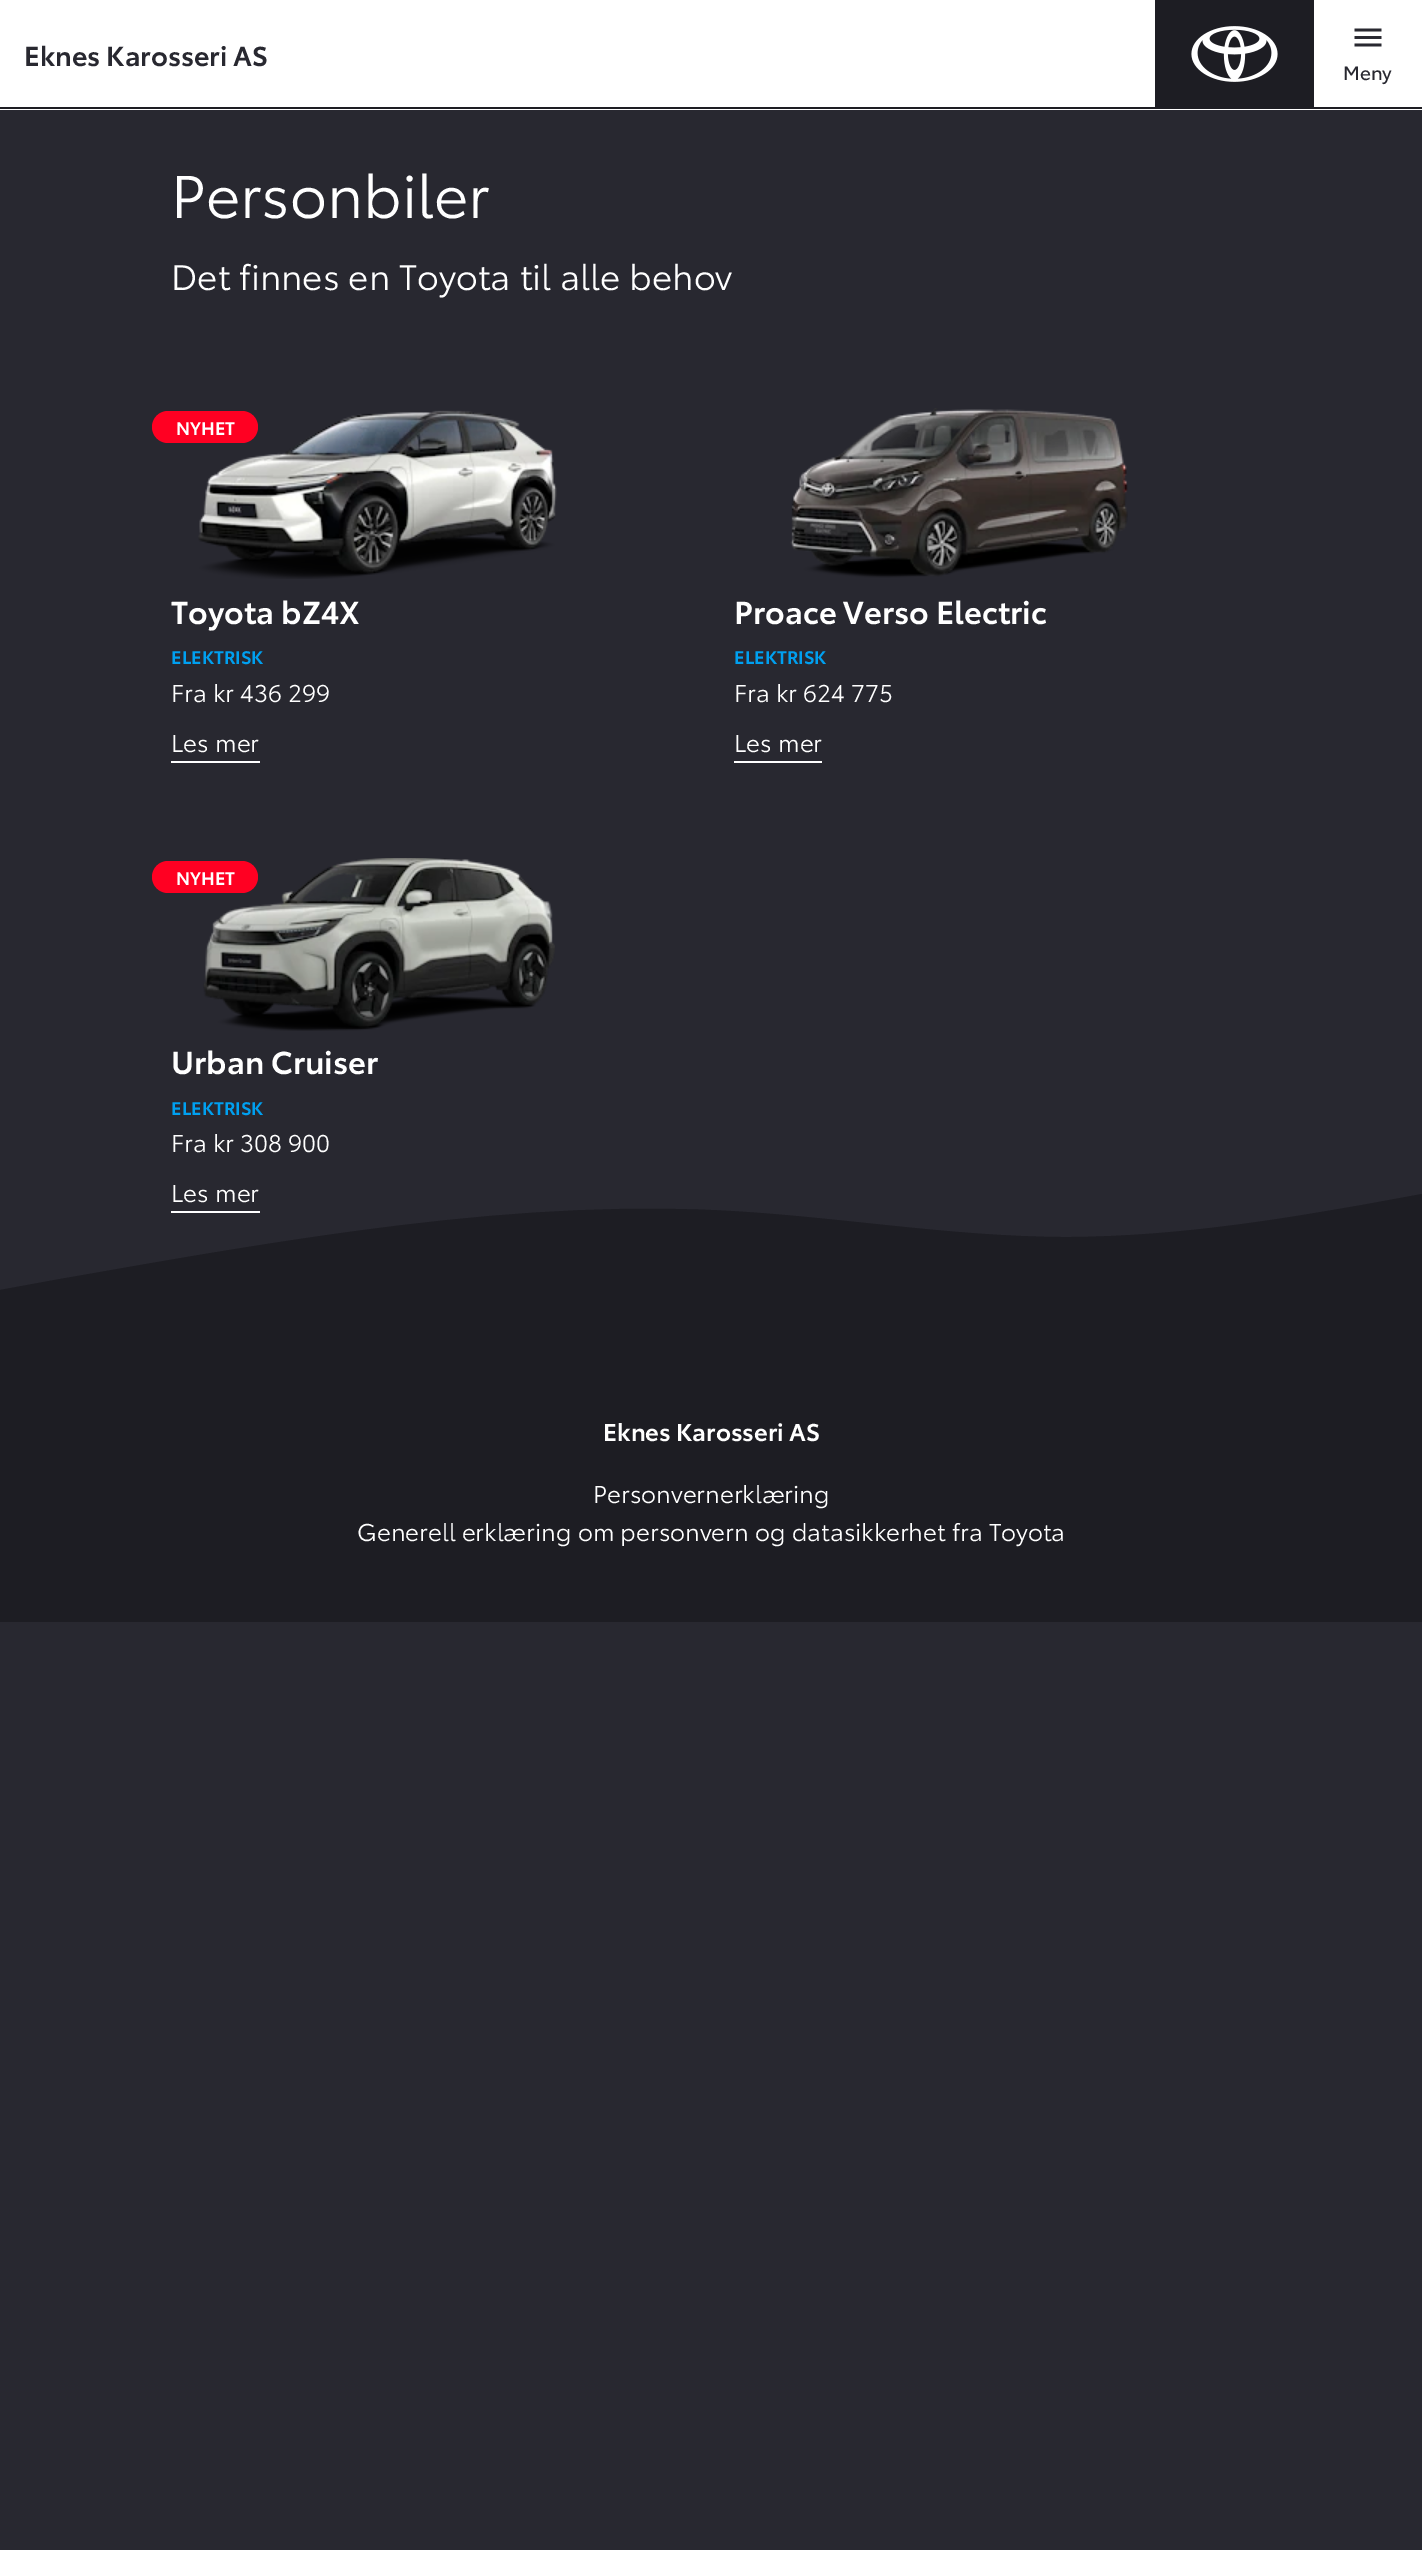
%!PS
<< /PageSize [1422 2550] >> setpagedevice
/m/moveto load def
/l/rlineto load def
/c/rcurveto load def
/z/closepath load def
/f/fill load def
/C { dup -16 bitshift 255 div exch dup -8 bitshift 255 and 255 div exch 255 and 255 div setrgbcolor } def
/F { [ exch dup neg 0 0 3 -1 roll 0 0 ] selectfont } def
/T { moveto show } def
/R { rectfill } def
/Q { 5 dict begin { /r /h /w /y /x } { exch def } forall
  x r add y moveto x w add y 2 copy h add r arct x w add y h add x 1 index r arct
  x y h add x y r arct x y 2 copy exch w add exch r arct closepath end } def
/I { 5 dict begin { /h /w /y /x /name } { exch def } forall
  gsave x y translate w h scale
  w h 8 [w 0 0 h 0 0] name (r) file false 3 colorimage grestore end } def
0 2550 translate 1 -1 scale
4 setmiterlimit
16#282830 C
0 0 1422 2550 R
16#FFFFFF C
0 0 1422 110 R
16#1D1D23 C
1155 0 159 107 R
(1.rgb) 1191 26 87 56 I
/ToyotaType-SemiBold 27 F
16#282830 C
(Eknes Karosseri AS) 24 66 T
(2.rgb) 1354 28 28 19 I
/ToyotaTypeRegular-Regular 19 F
(Meny) 1343 80 T
16#1D1D23 C
0 107 1422 2 R
/ToyotaType-Regular 59.25 F
16#FFFFFF C
(Personbiler) 171 218 T
/ToyotaType-Regular 34.9 F
(Det finnes en Toyota til alle behov) 171 290 T
(3.rgb) 198 410 359 169 I
16#FF0022 C
152 411 106 32 16 Q f
/ToyotaType-SemiBold 18 F
16#FFFFFF C
(NYHET) 176 435 T
/ToyotaType-SemiBold 31.25 F
(Toyota bZ4X) 171 624 T
/ToyotaType-SemiBold 18 F
16#00A0F0 C
(ELEKTRISK) 171 664 T
/ToyotaType-Regular 24 F
16#FFFFFF C
(Fra kr 436 299) 171 702 T
171 761 89 2 R
(Les mer) 171 752 T
(4.rgb) 790 408 338 170 I
/ToyotaType-SemiBold 31.25 F
(Proace Verso Electric) 734 624 T
/ToyotaType-SemiBold 18 F
16#00A0F0 C
(ELEKTRISK) 734 664 T
/ToyotaType-Regular 24 F
16#FFFFFF C
(Fra kr 624 775) 734 702 T
734 761 88 2 R
(Les mer) 734 752 T
(5.rgb) 203 858 352 173 I
16#FF0022 C
152 861 106 32 16 Q f
/ToyotaType-SemiBold 18 F
16#FFFFFF C
(NYHET) 176 885 T
/ToyotaType-SemiBold 31.25 F
(Urban Cruiser) 171 1074 T
/ToyotaType-SemiBold 18 F
16#00A0F0 C
(ELEKTRISK) 171 1115 T
/ToyotaType-Regular 24 F
16#FFFFFF C
(Fra kr 308 900) 171 1152 T
16#1D1D23 C
1422 1194 m -60 11 l -59 10 -177 32 -296 32 c -118 0 -237 -22 -355 -27 c -118 -5 -237 5 -355 21 c -119 16 -237 38 -296 48 c -60 11 l 0 92 l 1422 0 l z f
16#FFFFFF C
171 1211 89 2 R
(Les mer) 171 1202 T
16#1D1D23 C
0 1382 1422 240 R
/ToyotaType-SemiBold 24 F
16#FFFFFF C
(Eknes Karosseri AS) 603 1441 T
/ToyotaType-Regular 24 F
(Personvernerklæring) 593 1503 T
(Generell erklæring om personvern og datasikkerhet fra Toyota) 357 1541 T
showpage
